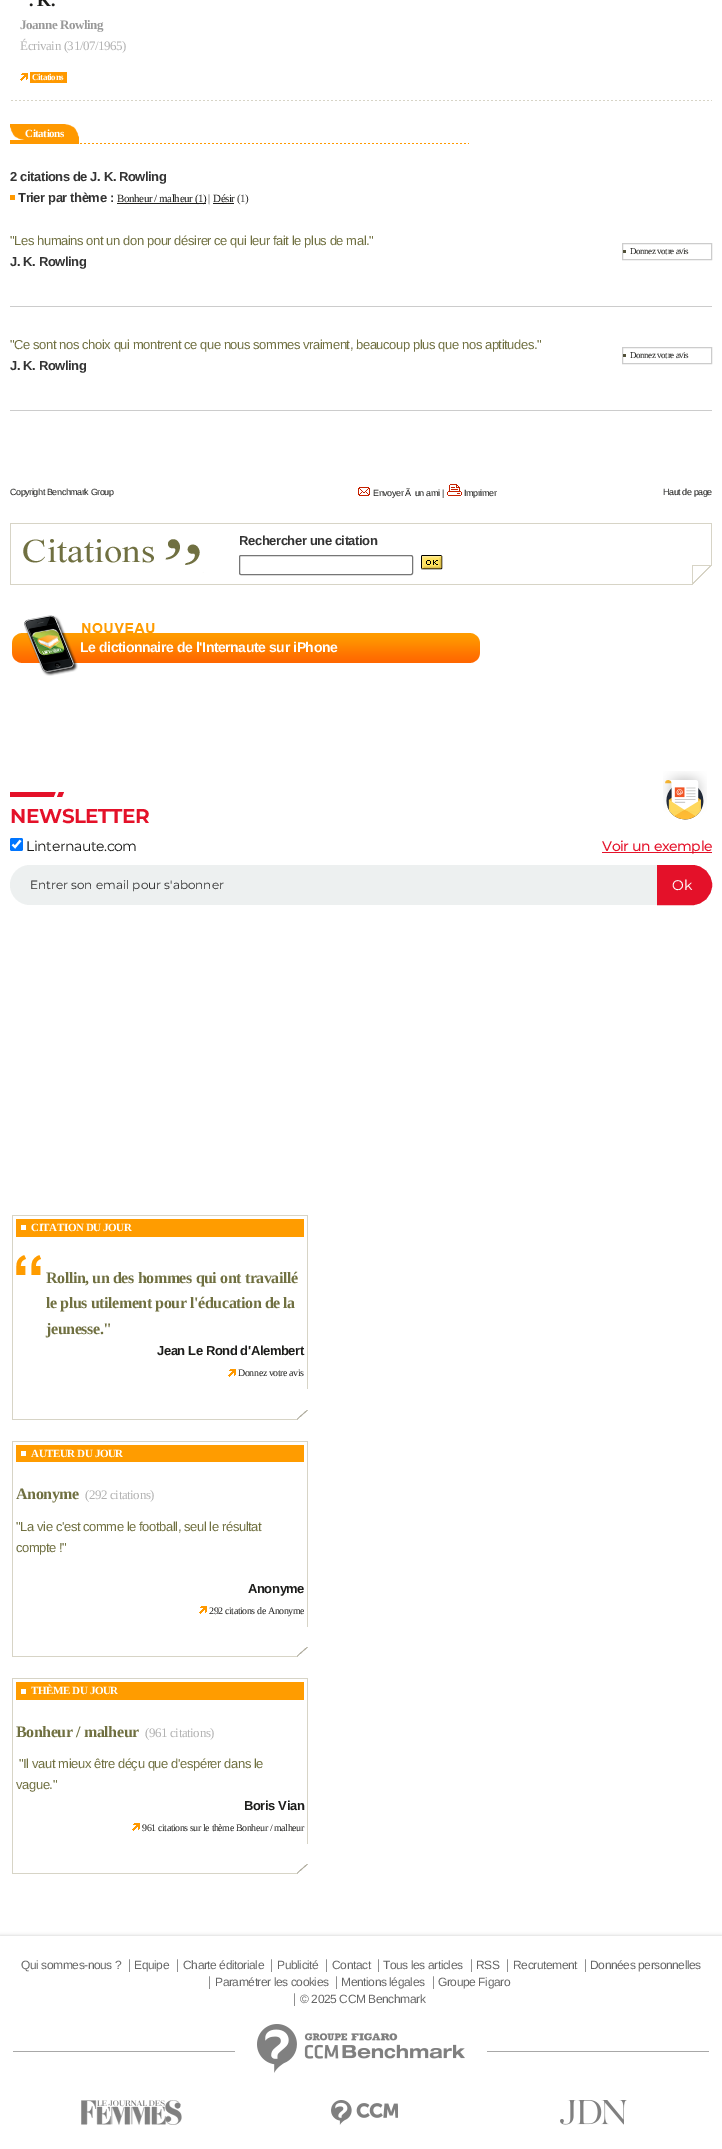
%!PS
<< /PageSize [722 2149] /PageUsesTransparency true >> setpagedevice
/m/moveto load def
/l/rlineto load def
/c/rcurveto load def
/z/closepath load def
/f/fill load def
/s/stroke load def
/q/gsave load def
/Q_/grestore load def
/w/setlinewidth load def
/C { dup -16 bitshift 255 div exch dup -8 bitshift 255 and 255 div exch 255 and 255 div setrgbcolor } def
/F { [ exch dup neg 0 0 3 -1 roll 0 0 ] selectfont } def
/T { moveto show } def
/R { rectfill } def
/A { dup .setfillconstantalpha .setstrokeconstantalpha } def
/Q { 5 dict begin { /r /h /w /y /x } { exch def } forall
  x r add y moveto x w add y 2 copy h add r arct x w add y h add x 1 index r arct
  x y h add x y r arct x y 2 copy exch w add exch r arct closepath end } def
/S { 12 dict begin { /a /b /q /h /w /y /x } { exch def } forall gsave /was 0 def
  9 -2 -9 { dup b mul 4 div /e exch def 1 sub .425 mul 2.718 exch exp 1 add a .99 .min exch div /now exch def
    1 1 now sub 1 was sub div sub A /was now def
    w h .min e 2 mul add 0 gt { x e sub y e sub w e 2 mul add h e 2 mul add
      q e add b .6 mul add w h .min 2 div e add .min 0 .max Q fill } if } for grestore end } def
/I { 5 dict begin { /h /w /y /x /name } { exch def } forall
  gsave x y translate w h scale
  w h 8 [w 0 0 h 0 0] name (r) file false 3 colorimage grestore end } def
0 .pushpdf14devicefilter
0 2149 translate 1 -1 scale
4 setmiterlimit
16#FFFFFF C
0 0 722 2149 R
/LiberationSerif-Bold 18 F
16#1D1D1B C
29 6 m -.42 0 (. K.) ashow
/LiberationSerif-Bold 13 F
16#999999 C
20 29 m -.42 0 (Joanne Rowling) ashow
/LiberationSerif-Regular 13 F
16#B2B2B2 C
20 50 m -.42 0 (Écrivain \(31/07/1965\)) ashow
(1.rgb) 20 73 8 8 I
16#FF9900 C
30 72 37 11 R
/LiberationSerif-Bold 9 F
16#FFFFFF C
32 80 m -.42 0 (Citations) ashow
16#D7D4C6 C
10 100 702 1 R
(2.rgb) 10 100 701 1 I
16#FF9900 C
10 124 54 20 R
(3.rgb) 10 126 15 14 I
64 138 15 6 R
(4.rgb) 64 124 15 14 I
/LiberationSerif-Bold 11 F
16#FFFFFF C
25 137 m -.42 0 (Citations) ashow
16#FF9900 C
79 143 390 1 R
(5.rgb) 79 143 389 1 I
/LiberationSans-Bold 13 F
16#333333 C
10 181 m -.42 0 (2 citations de J. K. Rowling) ashow
16#FF9900 C
10 195 5 5 R
16#333333 C
18 202 m -.42 0 (Trier par thème :) ashow
16#1D1D1B C
117 203 89 1 R
/LiberationSerif-Regular 11 F
117 202 m -.42 0 (Bonheur / malheur \(1\)) ashow
16#333333 C
208 202 m -.42 0 (|) ashow
16#1D1D1B C
213 202 m -.42 0 (Désir) ashow
213 203 21 1 R
16#333333 C
237 202 m -.42 0 (\(1\)) ashow
/LiberationSans-Regular 13 F
16#707041 C
10 245 m -.42 0 ("Les humains ont un don pour désirer ce qui leur fait le plus de mal.") ashow
16#CCCCCC C
622.5 243.5 89 16 rectstroke
16#525139 C
623 250 3 3 R
/LiberationSerif-Regular 9 F
16#1D1D1B C
630 254 m -.42 0 (Donnez votre avis) ashow
/LiberationSans-Bold 13 F
16#333333 C
10 266 m -.42 0 (J. K. Rowling) ashow
16#CCCCCC C
10 306 702 1 R
/LiberationSans-Regular 13 F
16#707041 C
10 349 m -.42 0 ("Ce sont nos choix qui montrent ce que nous sommes vraiment, beaucoup plus que nos aptitudes.") ashow
16#CCCCCC C
622.5 347.5 89 16 rectstroke
16#525139 C
623 354 3 3 R
/LiberationSerif-Regular 9 F
16#1D1D1B C
630 358 m -.42 0 (Donnez votre avis) ashow
/LiberationSans-Bold 13 F
16#333333 C
10 370 m -.42 0 (J. K. Rowling) ashow
16#CCCCCC C
10 410 702 1 R
/LiberationSans-Regular 9 F
16#1D1D1B C
10 495 m -.42 0 (Copyright Benchmark Group) ashow
(6.rgb) 358 487 12 9 I
373 496 m -.42 0 (Envoyer Ã  un ami) ashow
16#333333 C
442 496 m -.42 0 (|) ashow
(7.rgb) 447 484 15 12 I
16#1D1D1B C
464 496 m -.42 0 (Imprimer) ashow
663 495 m -.42 0 (Haut de page) ashow
16#D7D4C6 C
10 523 702 1 R
10 584 682 1 R
10 523 1 62 R
(8.rgb) 23 539 181 34 I
/LiberationSans-Bold 13 F
16#333333 C
239 545 m -.42 0 (Rechercher une citation) ashow
16#767676 C
239.5 555.5 173 19 1.5 Q s
(9.rgb) 421 555 22 15 I
16#D7D4C6 C
711 523 1 42 R
692 565 20 20 R
(10.rgb) 693 566 19 19 I
(11.rgb) 12 615 468 61 I
/LiberationSans-Bold 14 F
16#FFFFFF C
80 652 m -.42 0 (Le dictionnaire de l'Internaute sur iPhone) ashow
16#E41129 C
10 792 50 5 R
16#FFFFFF C
56 792 m 8 0 l -2 5 l -8 0 l z f
16#E41129 C
59 792 m 5 0 l -2 5 l -5 0 l z f
/Montserrat-Bold 20 F
10 823 m -.42 0 (NEWSLETTER) ashow
(12.rgb) 663 771 44 49 I
16#0075FF C
10 838 13 13 2 Q f
16#FFFFFF C
2.1 w
12.5 844.5 m 2.5 2.5 l 5.5 -6.5 l s
/Montserrat-Regular 14 F
16#1D1D1B C
26 851 m -.42 0 (Linternaute.com) ashow
16#E41129 C
602 852 110 1 R
/Montserrat-Medium 14 F
602 851 m -.42 0 (Voir un exemple) ashow
16#EDF0F0 C
10 865 702 40 20 Q f
/Montserrat-Regular 12 F
16#333333 C
(Entrer son email pour s'abonner) 30 889 T
16#E41129 C
658 866 m 34 0 l 10.5 0 19 8.5 19 19 c 0 10.5 -8.5 19 -19 19 c -34 0 l z q f Q_
2 w
s
/Montserrat-Regular 14 F
16#FFFFFF C
(Ok) 672 890 T
16#D7D4C6 C
12 1215 296 1 R
307 1215 1 174 R
12 1215 1 174 R
16#FF9C00 C
16 1219 288 18 R
16#FFFFFF C
21 1225 5 5 R
/LiberationSerif-Bold 11 F
31 1231 m -.42 0 (CITATION DU JOUR) ashow
(13.rgb) 16 1255 25 20 I
/LiberationSerif-Bold 16 F
16#707041 C
46 1283 m -.42 0 (Rollin, un des hommes qui ont travaillé) ashow
46 1308 m -.42 0 (le plus utilement pour l'éducation de la) ashow
46 1334 m -.42 0 (jeunesse.") ashow
/LiberationSans-Bold 13 F
16#1D1D1B C
157 1355 m -.42 0 (Jean Le Rond d'Alembert) ashow
(1.rgb) 228 1369 8 8 I
/LiberationSerif-Regular 10 F
238 1376 m -.42 0 (Donnez votre avis) ashow
16#D7D4C6 C
12 1419 285 1 R
12 1389 1 31 R
(14.rgb) 297 1410 11 10 I
12 1441 296 1 R
307 1441 1 186 R
12 1441 1 186 R
16#FF9C00 C
16 1445 288 17 R
16#FFFFFF C
21 1451 5 5 R
/LiberationSerif-Bold 11 F
31 1457 m -.42 0 (AUTEUR DU JOUR) ashow
/LiberationSerif-Bold 16 F
16#707041 C
16 1499 m -.42 0 (Anonyme) ashow
/LiberationSerif-Regular 13 F
16#B2B2B2 C
85 1499 m -.42 0 (\(292 citations\)) ashow
/LiberationSans-Regular 13 F
16#707041 C
16 1531 m -.42 0 ("La vie c'est comme le football, seul le résultat) ashow
16 1552 m -.42 0 (compte !") ashow
/LiberationSans-Bold 13 F
16#1D1D1B C
248 1593 m -.42 0 (Anonyme) ashow
(1.rgb) 199 1606 8 8 I
/LiberationSerif-Regular 10 F
209 1614 m -.42 0 (292 citations de Anonyme) ashow
16#D7D4C6 C
12 1656 285 1 R
12 1627 1 30 R
(14.rgb) 297 1647 11 10 I
12 1678 296 1 R
307 1678 1 166 R
12 1678 1 166 R
16#FF9C00 C
16 1682 288 18 R
16#FFFFFF C
21 1689 5 5 R
/LiberationSerif-Bold 11 F
31 1694 m -.42 0 (THÈME DU JOUR) ashow
/LiberationSerif-Bold 16 F
16#707041 C
16 1737 m -.42 0 (Bonheur / malheur) ashow
/LiberationSerif-Regular 13 F
16#B2B2B2 C
145 1737 m -.42 0 (\(961 citations\)) ashow
/LiberationSans-Regular 13 F
16#707041 C
19 1768 m -.42 0 ("Il vaut mieux être déçu que d'espérer dans le) ashow
16 1789 m -.42 0 (vague.") ashow
/LiberationSans-Bold 13 F
16#1D1D1B C
244 1810 m -.42 0 (Boris Vian) ashow
(1.rgb) 132 1823 8 8 I
/LiberationSerif-Regular 10 F
142 1831 m -.42 0 (961 citations sur le thème Bonheur / malheur) ashow
16#D7D4C6 C
12 1873 285 1 R
12 1844 1 30 R
(14.rgb) 297 1864 11 10 I
16#000000 C
0 1936 722 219 0 2 .2 S
16#FFFFFF C
0 1936 722 213 R
/LiberationSans-Regular 12 F
16#666666 C
21 1969 m -.42 0 (Qui sommes-nous ?) ashow
/LiberationSerif-Regular 14 F
128 1969 m -.42 0 (|) ashow
/LiberationSans-Regular 12 F
134 1969 m -.42 0 (Equipe) ashow
/LiberationSerif-Regular 14 F
176 1969 m -.42 0 (|) ashow
/LiberationSans-Regular 12 F
183 1969 m -.42 0 (Charte éditoriale) ashow
/LiberationSerif-Regular 14 F
270 1969 m -.42 0 (|) ashow
/LiberationSans-Regular 12 F
277 1969 m -.42 0 (Publicité) ashow
/LiberationSerif-Regular 14 F
325 1969 m -.42 0 (|) ashow
/LiberationSans-Regular 12 F
332 1969 m -.42 0 (Contact) ashow
/LiberationSerif-Regular 14 F
377 1969 m -.42 0 (|) ashow
/LiberationSans-Regular 12 F
383 1969 m -.42 0 (Tous les articles) ashow
/LiberationSerif-Regular 14 F
470 1969 m -.42 0 (|) ashow
/LiberationSans-Regular 12 F
476 1969 m -.42 0 (RSS) ashow
/LiberationSerif-Regular 14 F
506 1969 m -.42 0 (|) ashow
/LiberationSans-Regular 12 F
513 1969 m -.42 0 (Recrutement) ashow
/LiberationSerif-Regular 14 F
584 1969 m -.42 0 (|) ashow
/LiberationSans-Regular 12 F
590 1969 m -.42 0 (Données personnelles) ashow
/LiberationSerif-Regular 14 F
208 1986 m -.42 0 (|) ashow
/LiberationSans-Regular 12 F
215 1986 m -.42 0 (Paramétrer les cookies) ashow
/LiberationSerif-Regular 14 F
335 1986 m -.42 0 (|) ashow
/LiberationSans-Regular 12 F
341 1986 m -.42 0 (Mentions légales) ashow
/LiberationSerif-Regular 14 F
432 1986 m -.42 0 (|) ashow
/LiberationSans-Regular 12 F
438 1986 m -.42 0 (Groupe Figaro) ashow
/LiberationSerif-Regular 14 F
293 2003 m -.42 0 (|) ashow
/LiberationSans-Regular 12 F
300 2003 m -.42 0 (© 2025 CCM Benchmark) ashow
16#A8A8A8 C
13 2051 696 1 R
16#FFFFFF C
235 2051 252 1 R
(15.rgb) 257 2024 208 49 I
(16.rgb) 81 2100 101 25 I
(17.rgb) 331 2100 67 25 I
(18.rgb) 560 2100 67 25 I
.poppdf14devicefilter showpage
